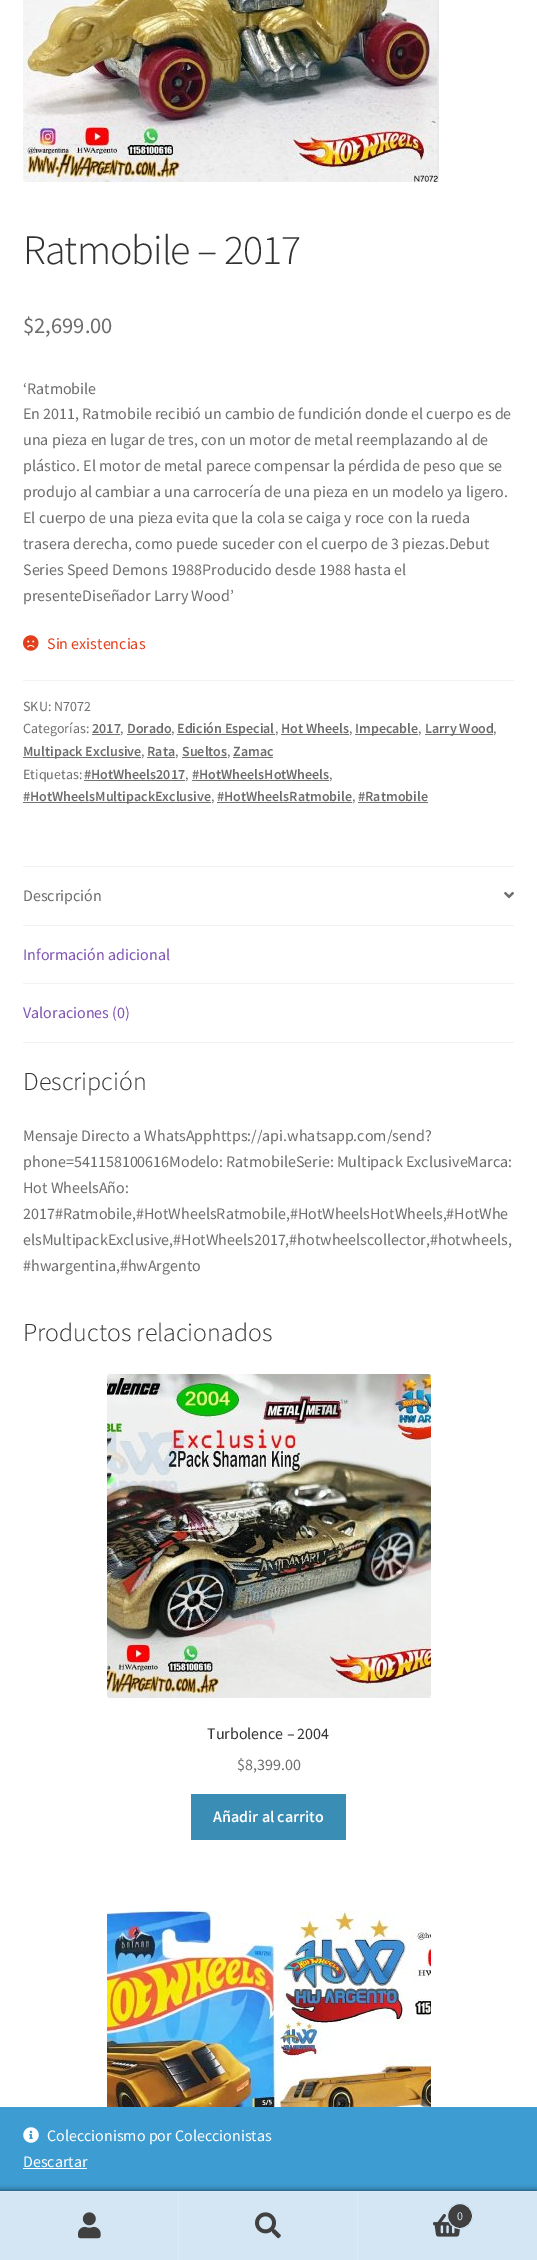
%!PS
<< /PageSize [537 2260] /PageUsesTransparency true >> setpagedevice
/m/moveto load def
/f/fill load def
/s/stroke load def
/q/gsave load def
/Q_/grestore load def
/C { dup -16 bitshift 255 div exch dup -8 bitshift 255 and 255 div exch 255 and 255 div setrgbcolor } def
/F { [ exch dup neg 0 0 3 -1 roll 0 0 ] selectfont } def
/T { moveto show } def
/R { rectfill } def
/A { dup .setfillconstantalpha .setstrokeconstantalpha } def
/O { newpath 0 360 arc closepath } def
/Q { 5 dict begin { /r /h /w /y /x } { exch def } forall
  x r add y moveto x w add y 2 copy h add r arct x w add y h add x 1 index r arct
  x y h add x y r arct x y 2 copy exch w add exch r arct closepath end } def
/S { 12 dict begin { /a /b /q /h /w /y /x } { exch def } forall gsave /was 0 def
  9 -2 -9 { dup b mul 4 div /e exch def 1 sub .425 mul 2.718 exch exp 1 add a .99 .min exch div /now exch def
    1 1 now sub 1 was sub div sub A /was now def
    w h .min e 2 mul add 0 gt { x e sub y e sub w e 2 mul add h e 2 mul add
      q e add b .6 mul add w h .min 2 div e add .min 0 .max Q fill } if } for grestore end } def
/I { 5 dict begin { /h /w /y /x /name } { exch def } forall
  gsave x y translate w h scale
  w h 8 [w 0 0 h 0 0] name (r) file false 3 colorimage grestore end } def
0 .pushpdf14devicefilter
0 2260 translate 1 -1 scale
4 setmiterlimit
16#FFFFFF C
0 0 537 2260 R
(1.rgb) 23 0 416 182 I
/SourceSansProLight-Light 42 F
16#333333 C
23 264 m -1 0 (Ratmobile – 2017) ashow
/SourceSansPro-Regular 22.5 F
16#6D6D6D C
($2,699.00) 23 333 T
/SourceSansPro-Regular 16 F
(‘Ratmobile) 23 394 T
(En 2011, Ratmobile recibió un cambio de fundición donde el cuerpo es de) 23 419 T
(una pieza en lugar de tres, con un motor de metal reemplazando al de) 23 445 T
(plástico. El motor de metal parece compensar la pérdida de peso que se) 23 471 T
(produjo al cambiar a una carrocería de una pieza en un modelo ya ligero.) 23 497 T
(El cuerpo de una pieza evita que la cola se caiga y roce con la rueda) 23 523 T
(trasera derecha, como puede suceder con el cuerpo de 3 piezas.Debut) 23 549 T
(Series Speed Demons 1988Producido desde 1988 hasta el) 23 575 T
(presenteDiseñador Larry Wood’) 23 601 T
(2.rgb) 23 635 16 16 I
16#E2401C C
(Sin existencias) 47 649 T
16#F2F2F2 C
23 680 491 1 R
/SourceSansPro-Regular 14 F
16#6D6D6D C
(SKU: N7072) 23 711 T
(Categorías:) 23 733 T
/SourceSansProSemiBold-SemiBold 14 F
(2017) 92 733 T
16#727272 C
92 734 28 1 R
/SourceSansPro-Regular 14 F
16#6D6D6D C
(,) 120 733 T
/SourceSansProSemiBold-SemiBold 14 F
(Dorado) 127 733 T
16#727272 C
127 734 44 1 R
/SourceSansPro-Regular 14 F
16#6D6D6D C
(,) 171 733 T
16#727272 C
177 734 98 1 R
/SourceSansProSemiBold-SemiBold 14 F
16#6D6D6D C
(Edición Especial) 177 733 T
/SourceSansPro-Regular 14 F
(,) 275 733 T
/SourceSansProSemiBold-SemiBold 14 F
(Hot Wheels) 281 733 T
16#727272 C
281 734 68 1 R
/SourceSansPro-Regular 14 F
16#6D6D6D C
(,) 349 733 T
16#727272 C
355 734 63 1 R
/SourceSansProSemiBold-SemiBold 14 F
16#6D6D6D C
(Impecable) 355 733 T
/SourceSansPro-Regular 14 F
(,) 418 733 T
16#727272 C
425 734 68 1 R
/SourceSansProSemiBold-SemiBold 14 F
16#6D6D6D C
(Larry Wood) 425 733 T
/SourceSansPro-Regular 14 F
(,) 493 733 T
16#727272 C
23 757 118 1 R
/SourceSansProSemiBold-SemiBold 14 F
16#6D6D6D C
(Multipack Exclusive) 23 756 T
/SourceSansPro-Regular 14 F
(,) 141 756 T
/SourceSansProSemiBold-SemiBold 14 F
(Rata) 147 756 T
16#727272 C
147 757 28 1 R
/SourceSansPro-Regular 14 F
16#6D6D6D C
(,) 175 756 T
/SourceSansProSemiBold-SemiBold 14 F
(Sueltos) 182 756 T
16#727272 C
182 757 45 1 R
/SourceSansPro-Regular 14 F
16#6D6D6D C
(,) 227 756 T
/SourceSansProSemiBold-SemiBold 14 F
(Zamac) 233 756 T
16#727272 C
233 757 40 1 R
/SourceSansPro-Regular 14 F
16#6D6D6D C
(Etiquetas:) 23 779 T
/SourceSansProSemiBold-SemiBold 14 F
(#HotWheels2017) 84 779 T
16#727272 C
84 780 101 1 R
/SourceSansPro-Regular 14 F
16#6D6D6D C
(,) 185 779 T
/SourceSansProSemiBold-SemiBold 14 F
(#HotWheelsHotWheels) 192 779 T
16#727272 C
192 780 137 1 R
/SourceSansPro-Regular 14 F
16#6D6D6D C
(,) 329 779 T
16#727272 C
23 802 188 1 R
/SourceSansProSemiBold-SemiBold 14 F
16#6D6D6D C
(#HotWheelsMultipackExclusive) 23 801 T
/SourceSansPro-Regular 14 F
(,) 211 801 T
/SourceSansProSemiBold-SemiBold 14 F
(#HotWheelsRatmobile) 217 801 T
16#727272 C
217 802 135 1 R
/SourceSansPro-Regular 14 F
16#6D6D6D C
(,) 352 801 T
/SourceSansProSemiBold-SemiBold 14 F
(#Ratmobile) 358 801 T
16#727272 C
358 802 70 1 R
16#F2F2F2 C
23 866 491 1 R
23 925 491 1 R
/SourceSansPro-Regular 16 F
16#6D6D6D C
(Descripción) 23 901 T
(3.rgb) 504 891 10 8 I
16#F2F2F2 C
23 983 491 1 R
16#7F54B3 C
(Información adicional) 23 960 T
16#F2F2F2 C
23 1042 491 1 R
16#7F54B3 C
(Valoraciones \(0\)) 23 1018 T
/SourceSansProLight-Light 25.9 F
16#333333 C
(Descripción) 23 1090 T
/SourceSansPro-Regular 16 F
16#6D6D6D C
(Mensaje Directo a WhatsApphttps://api.whatsapp.com/send?) 23 1141 T
(phone=541158100616Modelo: RatmobileSerie: Multipack ExclusiveMarca:) 23 1167 T
(Hot WheelsAño:) 23 1193 T
(2017#Ratmobile,#HotWheelsRatmobile,#HotWheelsHotWheels,#HotWhe) 23 1219 T
(elsMultipackExclusive,#HotWheels2017,#hotwheelscollector,#hotwheels,) 23 1245 T
(#hwargentina,#hwArgento) 23 1271 T
/SourceSansProLight-Light 25.9 F
16#333333 C
(Productos relacionados) 23 1341 T
(4.rgb) 107 1374 324 324 I
/SourceSansPro-Regular 16 F
(Turbolence – 2004) 207 1739 T
16#6D6D6D C
($8,399.00) 237 1770 T
16#3A8DB5 C
191 1794 155 46 R
/SourceSansProSemiBold-SemiBold 16 F
16#FFFFFF C
(Añadir al carrito) 213 1822 T
(5.rgb) 107 1911 324 196 I
16#3D9CD2 C
0 2107 537 84 R
16#000000 C
0 2191 537 69 0 3 .7 S
16#DDEBF6 C
0 2191 537 1 R
16#D4E6F4 C
0 2192 178 68 R
16#DDEBF6 C
178 2192 1 68 R
(6.rgb) 78 2212 23 27 I
16#D4E6F4 C
179 2192 178 68 R
16#DDEBF6 C
357 2192 1 68 R
(7.rgb) 255 2212 26 27 I
16#D4E6F4 C
358 2192 179 68 R
(8.rgb) 433 2214 28 23 I
16#404040 C
460 2216 12.5 O q f Q_
16#D4E6F4 C
s
/SourceSansPro-Regular 12 F
(0) 457 2220 T
(9.rgb) 23 2127 16 16 I
/SourceSansPro-Regular 16 F
16#FFFFFF C
(Coleccionismo por Coleccionistas) 47 2141 T
(Descartar) 23 2167 T
23 2168 64 1 R
.poppdf14devicefilter showpage
